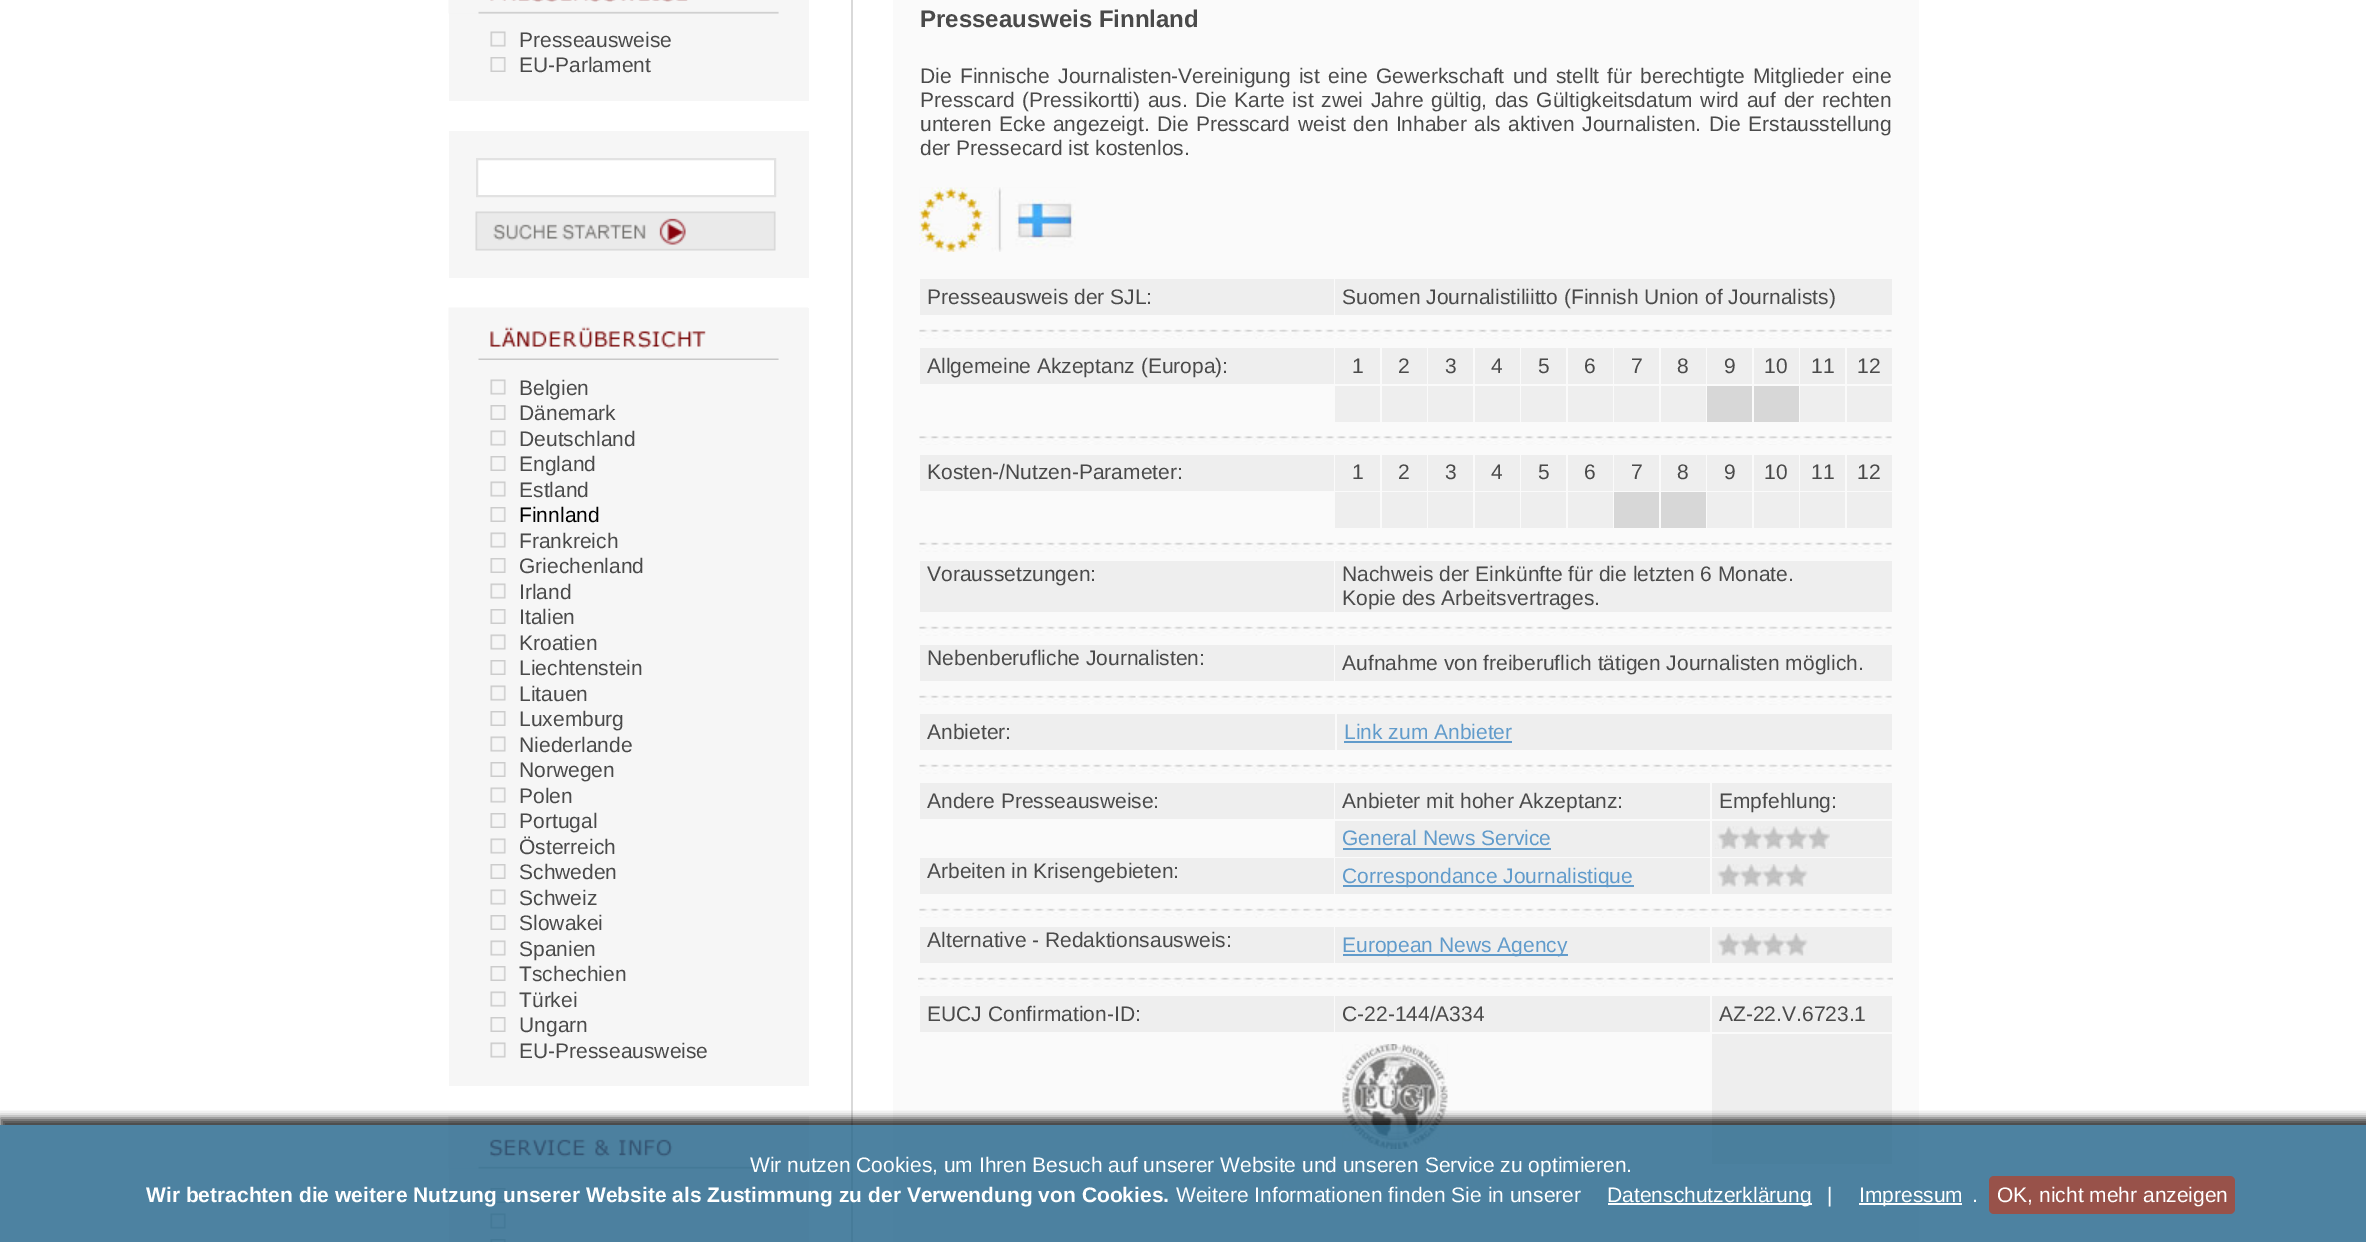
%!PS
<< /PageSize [2366 1242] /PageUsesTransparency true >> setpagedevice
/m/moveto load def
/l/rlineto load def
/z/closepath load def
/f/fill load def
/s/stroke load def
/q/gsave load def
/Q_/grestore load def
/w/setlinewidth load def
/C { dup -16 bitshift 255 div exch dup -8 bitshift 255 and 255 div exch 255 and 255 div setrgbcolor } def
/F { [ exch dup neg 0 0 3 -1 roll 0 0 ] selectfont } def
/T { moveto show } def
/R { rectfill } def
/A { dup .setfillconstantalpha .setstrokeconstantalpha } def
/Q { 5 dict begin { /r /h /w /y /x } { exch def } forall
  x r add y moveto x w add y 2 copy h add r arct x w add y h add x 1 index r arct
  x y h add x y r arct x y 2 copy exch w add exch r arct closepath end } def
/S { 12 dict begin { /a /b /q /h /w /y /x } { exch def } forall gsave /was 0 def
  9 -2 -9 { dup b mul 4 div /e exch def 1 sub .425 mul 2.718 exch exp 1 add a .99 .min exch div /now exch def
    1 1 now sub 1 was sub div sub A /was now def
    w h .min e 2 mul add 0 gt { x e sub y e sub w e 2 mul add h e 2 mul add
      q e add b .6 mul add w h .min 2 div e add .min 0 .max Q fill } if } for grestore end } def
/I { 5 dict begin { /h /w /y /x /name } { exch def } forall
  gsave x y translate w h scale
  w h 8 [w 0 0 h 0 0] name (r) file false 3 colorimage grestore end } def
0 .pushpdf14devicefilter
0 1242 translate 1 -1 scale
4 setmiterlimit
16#FFFFFF C
0 0 2366 1242 R
16#F6F6F6 C
449 0 360 101 R
(1.rgb) 448 0 331 14 I
(2.rgb) 490 31 16 16 I
/LiberationSans-Regular 21 F
16#4A4A4A C
(Presseausweise) 519 47 T
(3.rgb) 490 57 16 15 I
(EU-Parlament) 519 72 T
16#F6F6F6 C
449 131 360 147 R
16#FFFFFF C
477 159 m 298 0 l 0 37 l -298 0 l z q f Q_
16#E2E2E2 C
2 w
s
(4.rgb) 475 211 301 40 I
16#F6F6F6 C
449 308 360 778 R
(5.rgb) 448 307 360 53 I
(2.rgb) 490 379 16 16 I
16#4A4A4A C
(Belgien) 519 395 T
(3.rgb) 490 405 16 15 I
(Dänemark) 519 420 T
(2.rgb) 490 430 16 16 I
(Deutschland) 519 446 T
(3.rgb) 490 456 16 15 I
(England) 519 471 T
(2.rgb) 490 481 16 16 I
(Estland) 519 497 T
(3.rgb) 490 507 16 15 I
16#000000 C
(Finnland) 519 522 T
(2.rgb) 490 532 16 16 I
16#4A4A4A C
(Frankreich) 519 548 T
(3.rgb) 490 558 16 15 I
(Griechenland) 519 573 T
(2.rgb) 490 583 16 16 I
(Irland) 519 599 T
(3.rgb) 490 609 16 15 I
(Italien) 519 624 T
(2.rgb) 490 634 16 16 I
(Kroatien) 519 650 T
(3.rgb) 490 660 16 15 I
(Liechtenstein) 519 675 T
(2.rgb) 490 685 16 16 I
(Litauen) 519 701 T
(3.rgb) 490 711 16 15 I
(Luxemburg) 519 726 T
(2.rgb) 490 736 16 16 I
(Niederlande) 519 752 T
(3.rgb) 490 762 16 15 I
(Norwegen) 519 777 T
(2.rgb) 490 787 16 16 I
(Polen) 519 803 T
(3.rgb) 490 813 16 15 I
(Portugal) 519 828 T
(2.rgb) 490 838 16 16 I
(Österreich) 519 854 T
(3.rgb) 490 864 16 15 I
(Schweden) 519 879 T
(2.rgb) 490 889 16 16 I
(Schweiz) 519 905 T
(3.rgb) 490 915 16 15 I
(Slowakei) 519 930 T
(2.rgb) 490 940 16 16 I
(Spanien) 519 956 T
(3.rgb) 490 966 16 15 I
(Tschechien) 519 981 T
(2.rgb) 490 991 16 16 I
(Türkei) 519 1007 T
(3.rgb) 490 1017 16 15 I
(Ungarn) 519 1032 T
(2.rgb) 490 1042 16 16 I
(EU-Presseausweise) 519 1058 T
16#F6F6F6 C
449 1116 360 126 R
(6.rgb) 448 1116 331 53 I
(3.rgb) 490 1188 16 15 I
(2.rgb) 490 1213 16 16 I
(7.rgb) 490 1239 16 3 I
16#D9D9D9 C
851 0 2 1242 R
16#FAFAFA C
893 0 1026 1242 R
/LiberationSans-Bold 24 F
16#4A4A4A C
(Presseausweis Finnland) 920 27 T
/LiberationSans-Regular 21 F
920 83 m 2.5 0 32 (Die Finnische) widthshow
1058 83 m 2.5 0 32 (Journalisten-Vereinigung ist eine Gewerkschaft und stellt für berechtigte Mitglieder eine) widthshow
920 107 m 1.9 0 32 (Presscard \(Pressikortti\) aus. Die Karte ist zwei Jahre gültig, das Gültigkeitsdatum wird auf der rechten) widthshow
920 131 m 1.5 0 32 (unteren Ecke angezeigt. Die Presscard) widthshow
1298 131 m 1.5 0 32 (weist den Inhaber als aktiven) widthshow
1582 131 m 2 0 32 (Journalisten. Die Erstausstellung) widthshow
(der Pressecard ist kostenlos.) 920 155 T
(8.rgb) 919 187 157 65 I
16#EEEEEE C
920 279 414 36 R
16#4A4A4A C
(Presseausweis der SJL:) 927 304 T
16#EEEEEE C
1335 279 557 36 R
16#4A4A4A C
(Suomen Journalistiliitto \(Finnish Union of Journalists\)) 1342 304 T
(9.rgb) 919 329 973 10 I
16#EEEEEE C
920 348 414 36 R
16#4A4A4A C
(Allgemeine Akzeptanz \(Europa\):) 927 373 T
16#EEEEEE C
1335 348 45 36 R
16#4A4A4A C
(1) 1352 373 T
16#EEEEEE C
1382 348 45 36 R
16#4A4A4A C
(2) 1398 373 T
16#EEEEEE C
1428 348 45 36 R
16#4A4A4A C
(3) 1445 373 T
16#EEEEEE C
1475 348 45 36 R
16#4A4A4A C
(4) 1491 373 T
16#EEEEEE C
1521 348 45 36 R
16#4A4A4A C
(5) 1538 373 T
16#EEEEEE C
1568 348 45 36 R
16#4A4A4A C
(6) 1584 373 T
16#EEEEEE C
1614 348 45 36 R
16#4A4A4A C
(7) 1631 373 T
16#EEEEEE C
1661 348 45 36 R
16#4A4A4A C
(8) 1677 373 T
16#EEEEEE C
1707 348 45 36 R
16#4A4A4A C
(9) 1724 373 T
16#EEEEEE C
1754 348 45 36 R
16#4A4A4A C
(10) 1764 373 T
16#EEEEEE C
1800 348 45 36 R
16#4A4A4A C
(11) 1811 373 T
16#EEEEEE C
1847 348 45 36 R
16#4A4A4A C
(12) 1857 373 T
16#EEEEEE C
1335 386 45 36 R
1382 386 45 36 R
1428 386 45 36 R
1475 386 45 36 R
1521 386 45 36 R
1568 386 45 36 R
1614 386 45 36 R
1661 386 45 36 R
16#D7D7D7 C
1707 386 45 36 R
1754 386 45 36 R
16#EEEEEE C
1800 386 45 36 R
1847 386 45 36 R
(10.rgb) 919 436 973 9 I
920 455 414 36 R
16#4A4A4A C
(Kosten-/Nutzen-Parameter:) 927 479 T
16#EEEEEE C
1335 455 45 36 R
16#4A4A4A C
(1) 1352 479 T
16#EEEEEE C
1382 455 45 36 R
16#4A4A4A C
(2) 1398 479 T
16#EEEEEE C
1428 455 45 36 R
16#4A4A4A C
(3) 1445 479 T
16#EEEEEE C
1475 455 45 36 R
16#4A4A4A C
(4) 1491 479 T
16#EEEEEE C
1521 455 45 36 R
16#4A4A4A C
(5) 1538 479 T
16#EEEEEE C
1568 455 45 36 R
16#4A4A4A C
(6) 1584 479 T
16#EEEEEE C
1614 455 45 36 R
16#4A4A4A C
(7) 1631 479 T
16#EEEEEE C
1661 455 45 36 R
16#4A4A4A C
(8) 1677 479 T
16#EEEEEE C
1707 455 45 36 R
16#4A4A4A C
(9) 1724 479 T
16#EEEEEE C
1754 455 45 36 R
16#4A4A4A C
(10) 1764 479 T
16#EEEEEE C
1800 455 45 36 R
16#4A4A4A C
(11) 1811 479 T
16#EEEEEE C
1847 455 45 36 R
16#4A4A4A C
(12) 1857 479 T
16#EEEEEE C
1335 492 45 36 R
1382 492 45 36 R
1428 492 45 36 R
1475 492 45 36 R
1521 492 45 36 R
1568 492 45 36 R
16#D7D7D7 C
1614 492 45 36 R
1661 492 45 36 R
16#EEEEEE C
1707 492 45 36 R
1754 492 45 36 R
1800 492 45 36 R
1847 492 45 36 R
(9.rgb) 919 542 973 10 I
920 561 414 51 R
16#4A4A4A C
(Voraussetzungen:) 927 581 T
16#EEEEEE C
1335 561 557 51 R
16#4A4A4A C
(Nachweis der Einkünfte für die letzten 6 Monate.) 1342 581 T
(Kopie des Arbeitsvertrages.) 1342 605 T
(9.rgb) 919 626 973 10 I
16#EEEEEE C
920 645 414 36 R
16#4A4A4A C
(Nebenberufliche Journalisten:) 927 665 T
16#EEEEEE C
1335 645 557 36 R
16#4A4A4A C
(Aufnahme von freiberuflich tätigen Journalisten möglich.) 1342 670 T
(9.rgb) 919 695 973 10 I
16#EEEEEE C
920 714 415 36 R
16#4A4A4A C
(Anbieter:) 927 739 T
16#EEEEEE C
1337 714 555 36 R
16#619BCB C
(Link zum Anbieter) 1344 739 T
1344 741 168 2 R
(9.rgb) 919 764 973 10 I
16#EEEEEE C
920 783 414 36 R
16#4A4A4A C
(Andere Presseausweise:) 927 808 T
16#EEEEEE C
1335 783 375 36 R
16#4A4A4A C
(Anbieter mit hoher Akzeptanz:) 1342 808 T
16#EEEEEE C
1712 783 180 36 R
16#4A4A4A C
(Empfehlung:) 1719 808 T
16#EEEEEE C
1335 821 375 36 R
16#619BCB C
(General News Service) 1342 845 T
1343 848 208 2 R
16#EEEEEE C
1712 821 180 36 R
(11.rgb) 1715 826 115 23 I
920 858 414 36 R
16#4A4A4A C
(Arbeiten in Krisengebieten:) 927 878 T
16#EEEEEE C
1335 858 375 36 R
16#619BCB C
1343 885 291 2 R
(Correspondance Journalistique) 1342 883 T
16#EEEEEE C
1712 858 180 36 R
(12.rgb) 1717 864 91 23 I
(9.rgb) 919 908 973 10 I
920 927 414 36 R
16#4A4A4A C
(Alternative - Redaktionsausweis:) 927 947 T
16#EEEEEE C
1335 927 375 36 R
16#619BCB C
1343 954 225 2 R
(European News Agency) 1342 952 T
16#EEEEEE C
1712 927 180 36 R
(12.rgb) 1717 933 91 23 I
(13.rgb) 918 977 975 10 I
920 996 414 36 R
16#4A4A4A C
(EUCJ Confirmation-ID:) 927 1021 T
16#EEEEEE C
1335 996 375 36 R
16#4A4A4A C
(C-22-144/A334) 1342 1021 T
16#EEEEEE C
1712 996 180 36 R
16#4A4A4A C
(AZ-22.V.6723.1) 1719 1021 T
(14.rgb) 1342 1044 106 105 I
16#EEEEEE C
1712 1034 180 130 R
q
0 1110 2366 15 rectclip
16#000000 C
0 1118 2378 117 0 4 .75 S
Q_
0.8 A
16#216389 C
0 1125 2366 117 R
1 A
16#FFFFFF C
(Wir nutzen Cookies, um Ihren Besuch auf unserer Website und unseren Service zu optimieren.) 750 1172 T
/LiberationSans-Bold 21 F
(Wir betrachten die weitere Nutzung unserer Website als Zustimmung zu der Verwendung von Cookies.) 146 1202 T
/LiberationSans-Regular 21 F
(Weitere Informationen finden Sie in unserer) 1176 1202 T
1608 1203 204 2 R
(Datenschutzerklärung) 1607 1202 T
(|) 1827 1202 T
1859 1203 103 2 R
(Impressum) 1859 1202 T
(.) 1972 1202 T
16#98524A C
1989 1176 246 38 5 Q f
16#FFFFFF C
(OK, nicht mehr anzeigen) 1997 1202 T
.poppdf14devicefilter showpage
